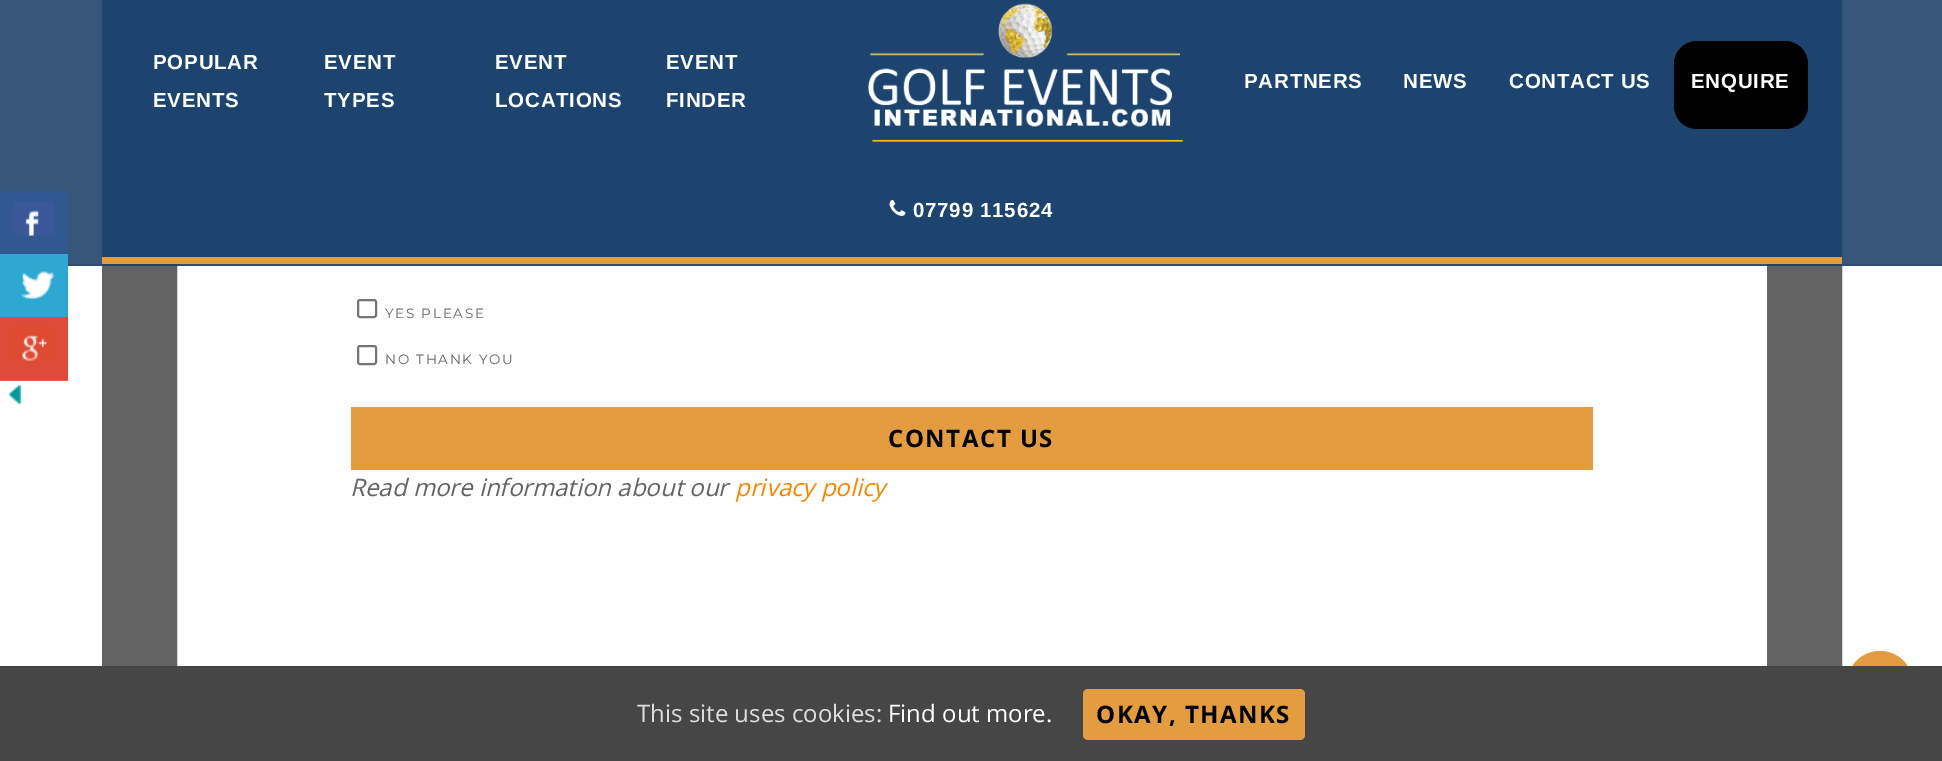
%!PS
<< /PageSize [1942 761] /PageUsesTransparency true >> setpagedevice
/m/moveto load def
/f/fill load def
/s/stroke load def
/w/setlinewidth load def
/C { dup -16 bitshift 255 div exch dup -8 bitshift 255 and 255 div exch 255 and 255 div setrgbcolor } def
/F { [ exch dup neg 0 0 3 -1 roll 0 0 ] selectfont } def
/T { moveto show } def
/R { rectfill } def
/A { dup .setfillconstantalpha .setstrokeconstantalpha } def
/O { newpath 0 360 arc closepath } def
/Q { 5 dict begin { /r /h /w /y /x } { exch def } forall
  x r add y moveto x w add y 2 copy h add r arct x w add y h add x 1 index r arct
  x y h add x y r arct x y 2 copy exch w add exch r arct closepath end } def
/I { 5 dict begin { /h /w /y /x /name } { exch def } forall
  gsave x y translate w h scale
  w h 8 [w 0 0 h 0 0] name (r) file false 3 colorimage grestore end } def
0 .pushpdf14devicefilter
0 761 translate 1 -1 scale
4 setmiterlimit
16#FFFFFF C
0 0 1942 761 R
16#636363 C
75 w
139.5 -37.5 1665 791 rectstroke
0.9 A
16#22436C C
0 0 1942 266 R
1 A
16#305891 C
0 191 68 63 R
(1.rgb) 13 201 42 35 I
16#2CA8D2 C
0 254 68 63 R
(2.rgb) 21 271 34 28 I
16#DD4C39 C
0 317 68 63 R
16#E05E4D C
0 380 68 1 R
(3.rgb) 12 326 43 35 I
(4.rgb) 8 384 14 21 I
0.1 A
16#000000 C
68 264 1874 2 R
1 A
16#1C446E C
102 0 1740 257 R
16#E39C3F C
102 257 1740 7 R
/LiberationSans-Bold 20.5 F
16#FFFFFF C
153 69 m .75 0 (POPULAR) ashow
153 107 m .75 0 (EVENTS) ashow
324 69 m .75 0 (EVENT) ashow
324 107 m .75 0 (TYPES) ashow
495 69 m .75 0 (EVENT) ashow
495 107 m .75 0 (LOCATIONS) ashow
666 69 m .75 0 (EVENT) ashow
666 107 m .75 0 (FINDER) ashow
(5.rgb) 868 3 316 139 I
1244 88 m .75 0 (PARTNERS) ashow
1403 88 m .75 0 (NEWS) ashow
1509 88 m .75 0 (CONTACT US) ashow
16#000000 C
1674 41 134 88 23 Q f
16#FFFFFF C
1691 88 m .75 0 (ENQUIRE) ashow
(6.rgb) 889 200 17 16 I
913 217 m .75 0 (07799 115624) ashow
16#767676 C
2 w
358 300 18 17 2 Q s
/Montserrat-Regular 13.5 F
16#636363 C
385 318 m 1.75 0 (YES PLEASE) ashow
16#767676 C
358 346 18 18 2 Q s
16#636363 C
385 364 m 1.75 0 (NO THANK YOU) ashow
16#E39C3F C
351 407 1242 63 R
/OpenSans-Bold 24 F
16#000000 C
888 447 m 1.5 0 (CONTACT US) ashow
/OpenSans-Italic 24 F
16#636363 C
(Read more information about our) 350 496 T
16#FF8400 C
(privacy policy) 735 496 T
16#E39C3F C
1880 684 33 O f
16#464646 C
0 666 1942 95 R
/OpenSans-Regular 24 F
16#DDDDDD C
(This site uses cookies:) 637 722 T
16#FFFFFF C
(Find out more.) 888 722 T
16#E39C3F C
1083 689 222 51 5 Q f
/OpenSans-Bold 24 F
16#000000 C
1096 723 m 1.5 0 (OKAY, THANKS) ashow
.poppdf14devicefilter showpage
